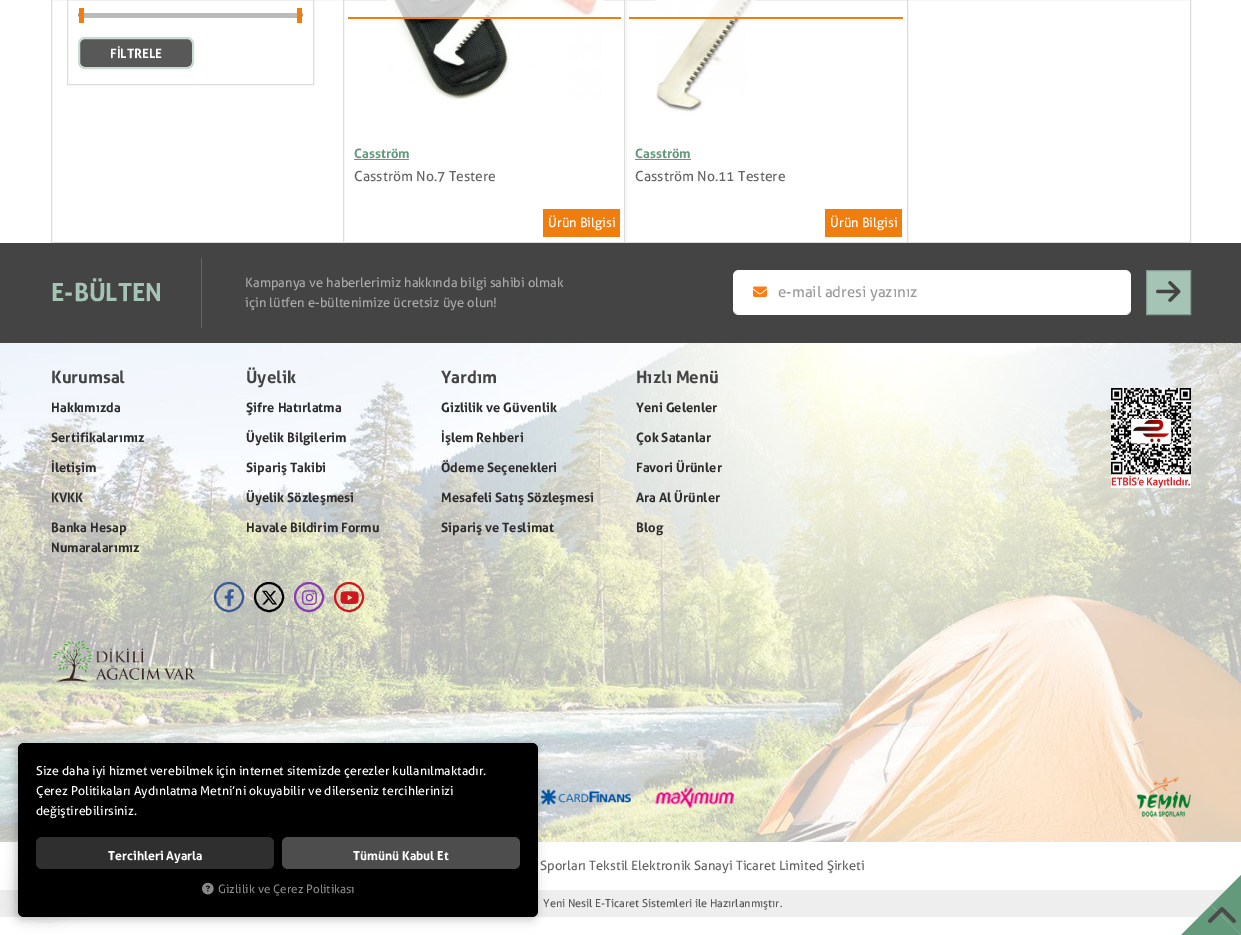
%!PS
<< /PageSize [1241 935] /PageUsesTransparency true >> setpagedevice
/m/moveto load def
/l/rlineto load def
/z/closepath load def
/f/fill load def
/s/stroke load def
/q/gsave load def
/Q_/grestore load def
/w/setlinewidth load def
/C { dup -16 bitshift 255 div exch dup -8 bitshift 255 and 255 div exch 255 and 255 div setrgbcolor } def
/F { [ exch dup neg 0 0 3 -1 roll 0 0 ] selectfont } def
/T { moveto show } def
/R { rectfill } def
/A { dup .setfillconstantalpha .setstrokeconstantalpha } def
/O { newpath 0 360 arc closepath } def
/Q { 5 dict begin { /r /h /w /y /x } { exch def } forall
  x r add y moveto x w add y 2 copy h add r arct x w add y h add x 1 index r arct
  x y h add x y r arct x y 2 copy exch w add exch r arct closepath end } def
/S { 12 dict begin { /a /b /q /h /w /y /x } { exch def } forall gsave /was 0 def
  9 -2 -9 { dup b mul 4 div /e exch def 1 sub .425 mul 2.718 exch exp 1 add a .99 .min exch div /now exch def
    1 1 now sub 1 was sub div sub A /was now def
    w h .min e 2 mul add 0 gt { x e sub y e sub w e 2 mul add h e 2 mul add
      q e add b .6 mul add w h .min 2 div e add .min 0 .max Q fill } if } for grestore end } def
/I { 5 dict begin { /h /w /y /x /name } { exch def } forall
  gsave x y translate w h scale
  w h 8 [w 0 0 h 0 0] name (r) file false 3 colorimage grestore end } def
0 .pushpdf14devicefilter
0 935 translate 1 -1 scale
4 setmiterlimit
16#FFFFFF C
0 0 1241 935 R
16#DDDDDD C
51.5 -.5 1139 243 rectstroke
67.5 -.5 246 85 rectstroke
16#999999 C
78.5 13.5 224 3 1.5 Q s
16#BBBBBB C
79 13 223 5 R
16#F07E0F C
79 8 5 15 R
297 8 5 15 R
16#585858 C
79 38 114 30 6 Q q f Q_
16#C9DCD1 C
2 w
s
/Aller-Bold 13 F
16#FFFFFF C
(FİLTRELE) 110 58 T
16#DDDDDD C
1 w
343.5 -.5 282 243 rectstroke
(1.rgb) 387 0 216 100 I
0.75 A
16#FFFFFF C
387 0 216 17 R
1 A
16#F07E0F C
348 17 273 2 R
16#649A7C C
(Casström) 354 158 T
354 159 55 1 R
/Aller-Regular 14 F
16#646464 C
(Casström No.7 Testere) 354 181 T
16#F07E0F C
543 209 77 28 R
/Aller-Regular 13 F
16#FFFFFF C
(Ürün Bilgisi) 548 227 T
625 0 1 242 R
16#DDDDDD C
624.5 -.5 283 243 rectstroke
(2.rgb) 655 0 100 114 I
0.75 A
16#FFFFFF C
705 0 50 17 R
1 A
16#F07E0F C
629 17 274 2 R
/Aller-Bold 13 F
16#649A7C C
(Casström) 635 158 T
635 159 56 1 R
/Aller-Regular 14 F
16#646464 C
(Casström No.11 Testere) 635 181 T
16#F07E0F C
825 209 77 28 R
/Aller-Regular 13 F
16#FFFFFF C
(Ürün Bilgisi) 830 227 T
16#444444 C
0 243 1241 100 R
16#666666 C
201 258 1 70 R
/Aller-Bold 25 F
16#A6C4B5 C
(E-BÜLTEN) 51 301 T
/Aller-Regular 13 F
16#AAAAAA C
(Kampanya ve haberlerimiz hakkında bilgi sahibi olmak) 245 287 T
(için lütfen e-bültenimize ücretsiz üye olun!) 245 307 T
16#FFFFFF C
733 270 398 45 6 Q f
(3.rgb) 753 286 14 11 I
/Aller-Regular 15 F
16#999999 C
(e-mail adresi yazınız) 778 297 T
16#A6C4B5 C
1146.5 270.5 m 44 0 l 0 44 l -44 0 l z q f Q_
16#859A90 C
s
(4.rgb) 1156 281 25 21 I
(5.rgb) 0 343 1241 499 I
/Aller-Bold 17 F
16#444444 C
(Kurumsal) 51 383 T
/Aller-Bold 13 F
16#2E2C2C C
(Hakkımızda) 51 412 T
(Sertifikalarımız) 51 442 T
(İletişim) 51 472 T
(KVKK) 51 502 T
(Banka Hesap) 51 532 T
(Numaralarımız) 51 552 T
/Aller-Bold 17 F
16#444444 C
(Üyelik) 246 383 T
/Aller-Bold 13 F
16#2E2C2C C
(Şifre Hatırlatma) 246 412 T
(Üyelik Bilgilerim) 246 442 T
(Sipariş Takibi) 246 472 T
(Üyelik Sözleşmesi) 246 502 T
(Havale Bildirim Formu) 246 532 T
/Aller-Bold 17 F
16#444444 C
(Yardım) 441 383 T
/Aller-Bold 13 F
16#2E2C2C C
(Gizlilik ve Güvenlik) 441 412 T
(İşlem Rehberi) 441 442 T
(Ödeme Seçenekleri) 441 472 T
(Mesafeli Satış Sözleşmesi) 441 502 T
(Sipariş ve Teslimat) 441 532 T
/Aller-Bold 17 F
16#444444 C
(Hızlı Menü) 636 383 T
/Aller-Bold 13 F
16#2E2C2C C
(Yeni Gelenler) 636 412 T
(Çok Satanlar) 636 442 T
(Favori Ürünler) 636 472 T
(Ara Al Ürünler) 636 502 T
(Blog) 636 532 T
16#3B5998 C
2 w
229 597 14 O s
(6.rgb) 224 589 10 18 I
16#000000 C
269 597 14 O s
(7.rgb) 262 590 15 15 I
16#8A3AB9 C
309 597 14 O s
(8.rgb) 302 590 15 16 I
16#CC181E C
349 597 14 O s
(9.rgb) 340 591 19 13 I
(10.rgb) 52 639 144 44 I
(11.rgb) 1111 388 80 100 I
(12.rgb) 541 789 90 16 I
(13.rgb) 655 787 79 22 I
(14.rgb) 1137 777 54 40 I
16#EEEEEE C
0 890 1226 27 R
16#000000 C
16 745 520 174 6 5 .25 S
20 866 50 50 25 10 .1 S
18 743 520 174 6 Q f
/Aller-Regular 12.35 F
16#FFFFFF C
(Size daha iyi hizmet verebilmek için internet sitemizde çerezler kullanılmaktadır.) 36 775 T
(Çerez Politikaları Aydınlatma Metni’ni okuyabilir ve dilerseniz tercihlerinizi) 36 795 T
(değiştirebilirsiniz.) 36 815 T
16#2F2F2F C
36 837 238 32 6 Q f
/Aller-Bold 12.35 F
16#FFFFFF C
(Tercihleri Ayarla) 108 860 T
16#4D4D4D C
282 837 238 32 6 Q f
16#FFFFFF C
(Tümünü Kabul Et) 353 860 T
(15.rgb) 202 882 12 13 I
/Aller-Regular 11.75 F
16#888888 C
(Gizlilik ve Çerez Politikası) 218 893 T
/Aller-Regular 13 F
16#646464 C
(Sporları Tekstil Elektronik Sanayi Ticaret Limited Şirketi) 540 870 T
/Aller-Regular 11 F
16#575756 C
(Yeni Nesil E-Ticaret Sistemleri ile Hazırlanmıştır.) 543 907 T
16#649A7C C
1241 875 m 0 60 l -30 -30 l z f
1241 935 m -60 0 l 30 -30 l z f
(16.rgb) 1208 907 28 16 I
.poppdf14devicefilter showpage
